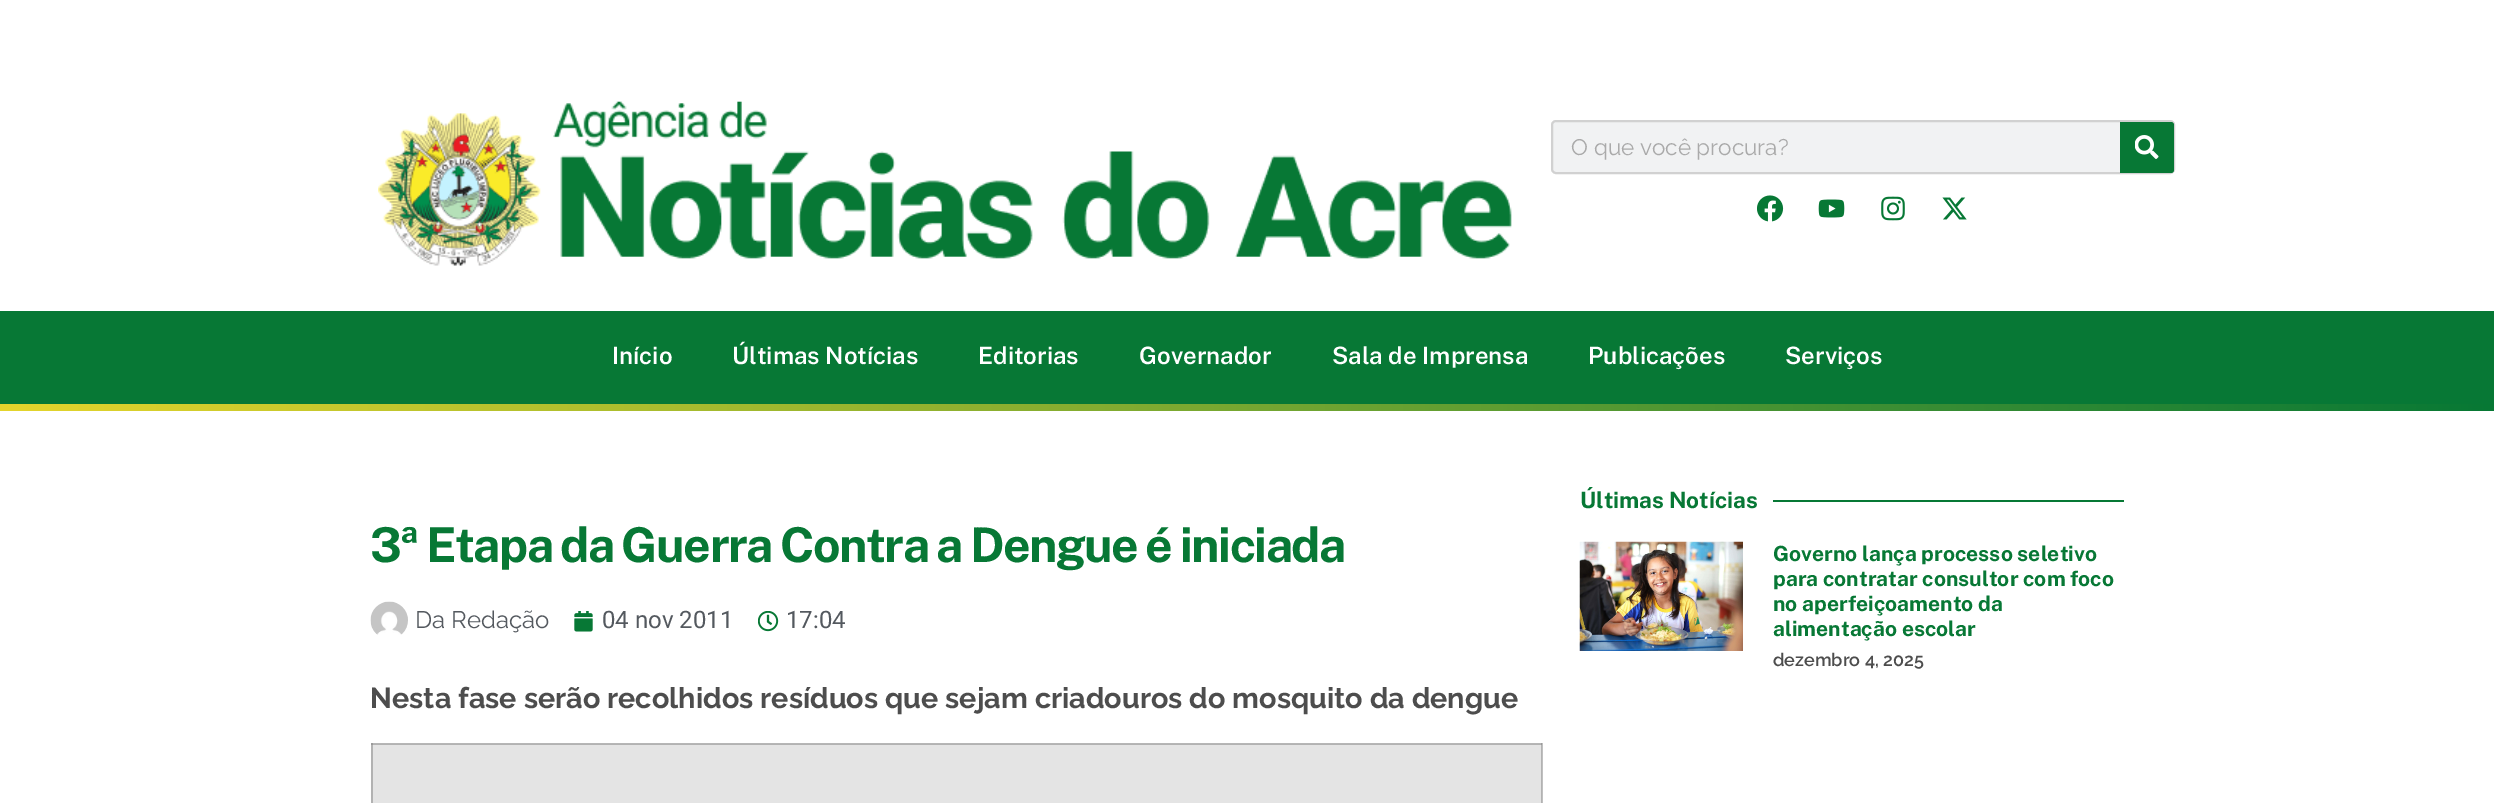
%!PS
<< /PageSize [2494 803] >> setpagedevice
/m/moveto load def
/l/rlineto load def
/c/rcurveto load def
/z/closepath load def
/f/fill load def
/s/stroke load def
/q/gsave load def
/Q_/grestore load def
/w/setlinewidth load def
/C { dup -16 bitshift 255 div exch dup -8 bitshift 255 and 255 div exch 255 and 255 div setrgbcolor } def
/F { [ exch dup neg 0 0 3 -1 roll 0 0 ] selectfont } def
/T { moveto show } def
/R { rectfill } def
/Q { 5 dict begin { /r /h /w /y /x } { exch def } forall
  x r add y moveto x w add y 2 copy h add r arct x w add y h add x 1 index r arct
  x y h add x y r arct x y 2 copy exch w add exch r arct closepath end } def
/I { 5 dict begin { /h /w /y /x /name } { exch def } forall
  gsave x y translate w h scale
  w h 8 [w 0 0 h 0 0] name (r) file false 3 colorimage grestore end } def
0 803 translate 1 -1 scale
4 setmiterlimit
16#FFFFFF C
0 0 2494 803 R
16#C0C0C0 C
1542 743 1 60 R
(1.rgb) 378 101 1134 165 I
16#F1F2F3 C
1552 121 622 52 4 Q q f Q_
16#D1D1D1 C
2 w
s
/Raleway-Regular 22.5 F
16#AAAAAA C
(O que você procura?) 1571 155 T
16#077835 C
2120 122 m 51 0 l 1.5 0 3 1.5 3 3 c 0 45 l 0 1.5 -1.5 3 -3 3 c -51 0 l z f
(2.rgb) 2135 135 24 24 I
(3.rgb) 1757 195 27 27 I
(4.rgb) 1818 199 27 19 I
(5.rgb) 1881 196 24 25 I
(6.rgb) 1942 197 25 23 I
0 311 2494 93 R
/PublicSans-SemiBold 24 F
16#FFFFFF C
(Início) 612 364 T
(Últimas Notícias) 732 364 T
(Editorias) 978 364 T
(Governador) 1139 364 T
(Sala de Imprensa) 1332 364 T
(Publicações) 1588 364 T
(Serviços) 1785 364 T
q 0 404 m 2494 0 l 0 7 l -2494 0 l z clip newpath
<< /ShadingType 2 /ColorSpace /DeviceRGB /Coords [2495 407 0 407] /Extend [true true] /Function << /FunctionType 2 /Domain [0 1] /C0 [.027 .471 .208] /C1 [.898 .835 .173] /N 1 >> >> shfill Q_
/PublicSans-Bold 48 F
16#077835 C
370 562 m -1.5 0 (3ª) ashow
426 562 m -1.5 0 32 -1.5 0 (Etapa da Guerra Contra a Dengue é) awidthshow
1180 562 m -1.5 0 (iniciada) ashow
(7.rgb) 370 601 38 34 I
/Raleway-Regular 24 F
16#54595F C
(Da Redação) 415 628 T
(8.rgb) 574 611 19 21 I
/Roboto-Regular 24 F
(04 nov 2011) 602 628 T
(9.rgb) 758 611 21 21 I
(17:04) 786 628 T
/Raleway-Bold 28.8 F
16#4D4D4D C
(Nesta fase serão recolhidos resíduos que sejam criadouros do mosquito da dengue) 370 708 T
16#B6B6B6 C
371 743 1171 1 R
16#9B9B9B C
371 743 2 1 R
1541 743 1 2 R
16#E4E4E4 C
373 745 1168 58 R
16#B2B2B2 C
371 744 2 59 R
1541 744 1 59 R
371 744 1171 1 R
16#999999 C
371 744 2 1 R
1541 744 1 1 R
/PublicSans-Bold 22.5 F
16#077835 C
(Últimas Notícias) 1580 508 T
1773 500 351 2 R
(10.rgb) 1579 541 164 110 I
/PublicSans-Bold 21 F
(Governo lança processo seletivo) 1773 561 T
(para contratar consultor com foco) 1773 586 T
(no aperfeiçoamento da) 1773 611 T
(alimentação escolar) 1773 636 T
/Raleway-SemiBold 18 F
16#4D4D4D C
(dezembro 4, 2025) 1773 666 T
showpage
